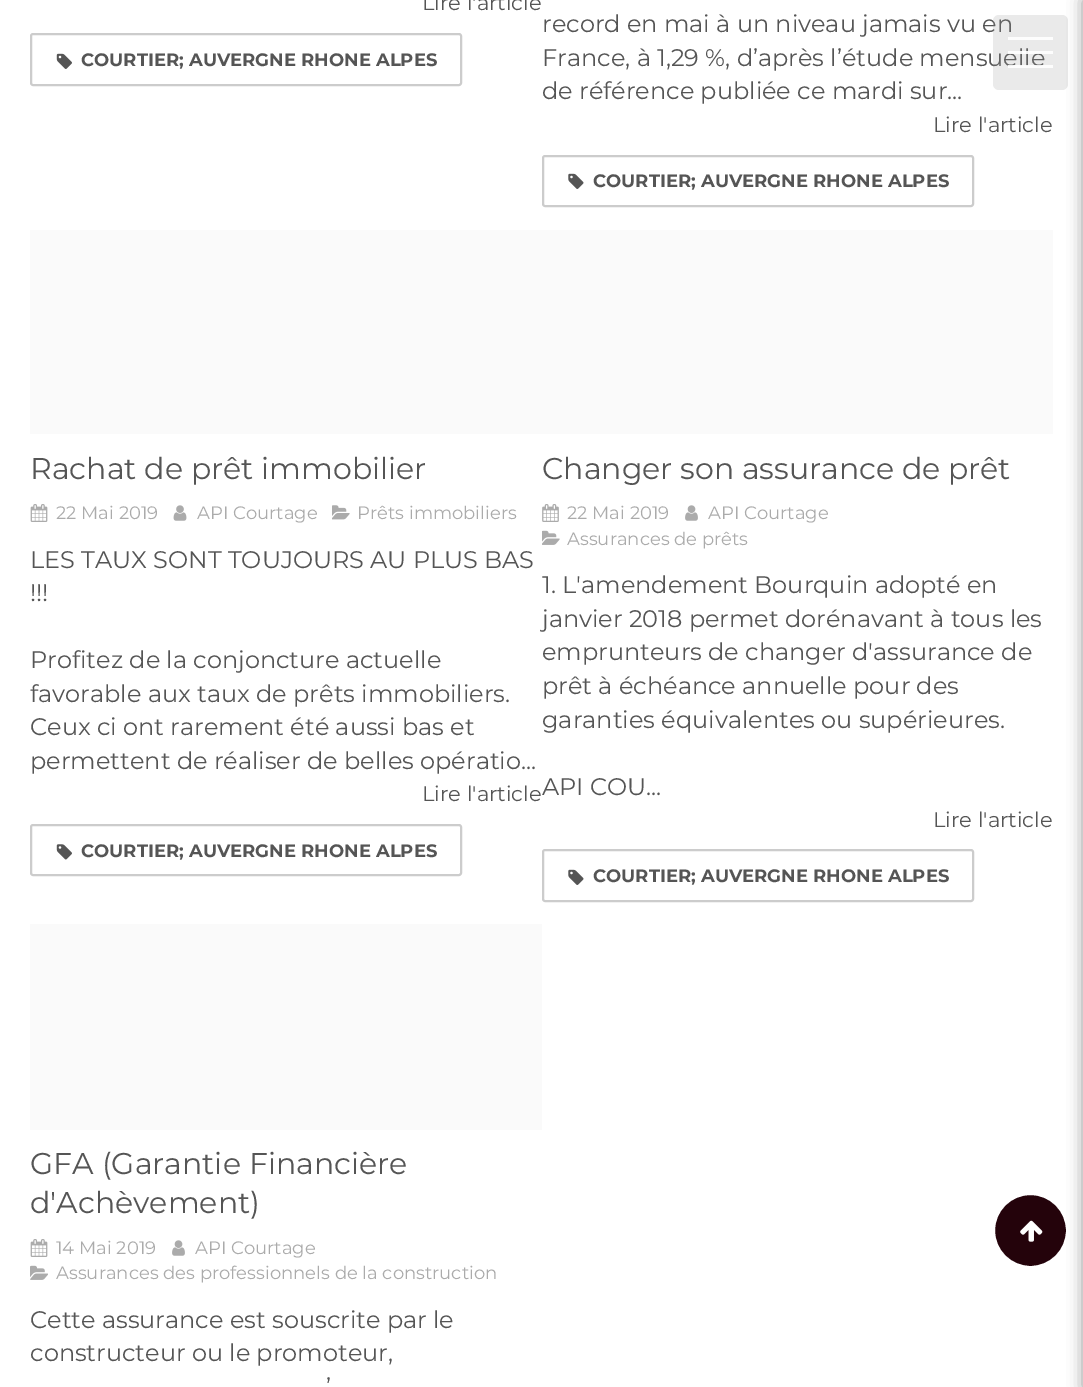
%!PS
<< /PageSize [1083 1387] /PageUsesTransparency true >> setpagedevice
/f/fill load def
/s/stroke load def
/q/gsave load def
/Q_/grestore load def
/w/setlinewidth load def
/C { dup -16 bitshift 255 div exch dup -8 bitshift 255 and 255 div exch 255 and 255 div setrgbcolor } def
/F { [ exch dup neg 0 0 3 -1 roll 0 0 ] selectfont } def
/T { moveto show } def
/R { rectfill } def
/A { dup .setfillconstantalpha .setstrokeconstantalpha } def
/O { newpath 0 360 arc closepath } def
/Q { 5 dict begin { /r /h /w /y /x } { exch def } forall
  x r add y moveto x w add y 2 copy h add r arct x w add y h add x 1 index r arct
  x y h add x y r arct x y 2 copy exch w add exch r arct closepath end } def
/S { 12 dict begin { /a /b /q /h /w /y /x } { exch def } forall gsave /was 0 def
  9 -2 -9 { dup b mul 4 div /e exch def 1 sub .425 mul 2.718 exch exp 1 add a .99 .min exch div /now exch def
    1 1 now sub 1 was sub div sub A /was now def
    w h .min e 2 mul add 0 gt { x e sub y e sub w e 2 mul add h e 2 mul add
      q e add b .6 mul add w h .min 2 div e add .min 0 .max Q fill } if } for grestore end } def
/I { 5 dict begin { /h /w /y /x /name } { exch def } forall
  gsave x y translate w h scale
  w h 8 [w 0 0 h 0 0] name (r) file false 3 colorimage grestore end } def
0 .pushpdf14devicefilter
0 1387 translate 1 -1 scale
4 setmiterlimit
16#FFFFFF C
0 0 1083 1387 R
/Montserrat-Regular 21 F
16#555555 C
(Lire l'article) 422 10 T
16#CCCCCC C
2 w
31 34 430 51 2 Q s
(1.rgb) 56 53 16 16 I
/Montserrat-Bold 18 F
16#555555 C
(COURTIER; AUVERGNE RHONE ALPES) 81 66 T
/Montserrat-Regular 24 F
(record en mai à un niveau jamais vu en) 542 32 T
(France, à 1,29 %, d’après l’étude mensuelle) 542 66 T
(de référence publiée ce mardi sur...) 542 99 T
/Montserrat-Regular 21 F
(Lire l'article) 933 132 T
16#CCCCCC C
543 156 430 50 2 Q s
(2.rgb) 568 173 16 16 I
/Montserrat-Bold 18 F
16#555555 C
(COURTIER; AUVERGNE RHONE ALPES) 593 187 T
16#FAFAFA C
30 230 1023 204 R
/Montserrat-Regular 30 F
16#555555 C
(Rachat de prêt immobilier) 30 479 T
(3.rgb) 30 504 18 18 I
/Montserrat-Regular 18 F
16#ABABAB C
(22 Mai 2019) 56 519 T
(4.rgb) 173 505 14 16 I
(API Courtage) 197 519 T
(5.rgb) 332 505 18 15 I
(Prêts immobiliers) 357 519 T
/Montserrat-Regular 24 F
16#555555 C
(LES TAUX SONT TOUJOURS AU PLUS BAS) 30 568 T
(!!!) 30 601 T
(Profitez de la conjoncture actuelle) 30 668 T
(favorable aux taux de prêts immobiliers.) 30 702 T
(Ceux ci ont rarement été aussi bas et) 30 735 T
(permettent de réaliser de belles opératio...) 30 769 T
/Montserrat-Regular 21 F
(Lire l'article) 422 801 T
16#CCCCCC C
31 825 430 50 2 Q s
(6.rgb) 56 844 16 16 I
/Montserrat-Bold 18 F
16#555555 C
(COURTIER; AUVERGNE RHONE ALPES) 81 857 T
/Montserrat-Regular 30 F
(Changer son assurance de prêt) 542 479 T
(7.rgb) 542 504 17 18 I
/Montserrat-Regular 18 F
16#ABABAB C
(22 Mai 2019) 567 519 T
(8.rgb) 685 505 13 16 I
(API Courtage) 708 519 T
(9.rgb) 542 530 18 15 I
(Assurances de prêts) 567 545 T
/Montserrat-Regular 24 F
16#555555 C
(1. L'amendement Bourquin adopté en) 542 593 T
(janvier 2018 permet dorénavant à tous les) 542 627 T
(emprunteurs de changer d'assurance de) 542 660 T
(prêt à échéance annuelle pour des) 542 694 T
(garanties équivalentes ou supérieures.) 542 728 T
(API COU...) 542 795 T
/Montserrat-Regular 21 F
(Lire l'article) 933 827 T
16#CCCCCC C
543 850 430 51 2 Q s
(2.rgb) 568 869 16 16 I
/Montserrat-Bold 18 F
16#555555 C
(COURTIER; AUVERGNE RHONE ALPES) 593 882 T
16#FAFAFA C
30 924 512 206 R
/Montserrat-Regular 30 F
16#555555 C
(GFA \(Garantie Financière) 30 1174 T
(d'Achèvement\)) 30 1213 T
(3.rgb) 30 1239 18 18 I
/Montserrat-Regular 18 F
16#ABABAB C
(14 Mai 2019) 56 1254 T
(8.rgb) 172 1240 13 16 I
(API Courtage) 195 1254 T
(10.rgb) 30 1265 18 15 I
(Assurances des professionnels de la construction) 56 1279 T
/Montserrat-Regular 24 F
16#555555 C
(Cette assurance est souscrite par le) 30 1328 T
(constructeur ou le promoteur,) 30 1361 T
(’) 326 1395 T
0.2 A
16#969696 C
993 15 75 75 6 Q f
1 A
16#FDFDFD C
1008 37 45 3 R
0.9 A
16#FFFFFF C
1008 51 45 3 R
1008 65 45 3 R
1 A
16#24030B C
1030.5 1230.5 36.5 O q f Q_
16#FFFFFF C
s
16#000000 C
1083 0 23 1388 0 7.5 .4 S
(11.rgb) 1020 1220 23 22 I
.poppdf14devicefilter showpage
